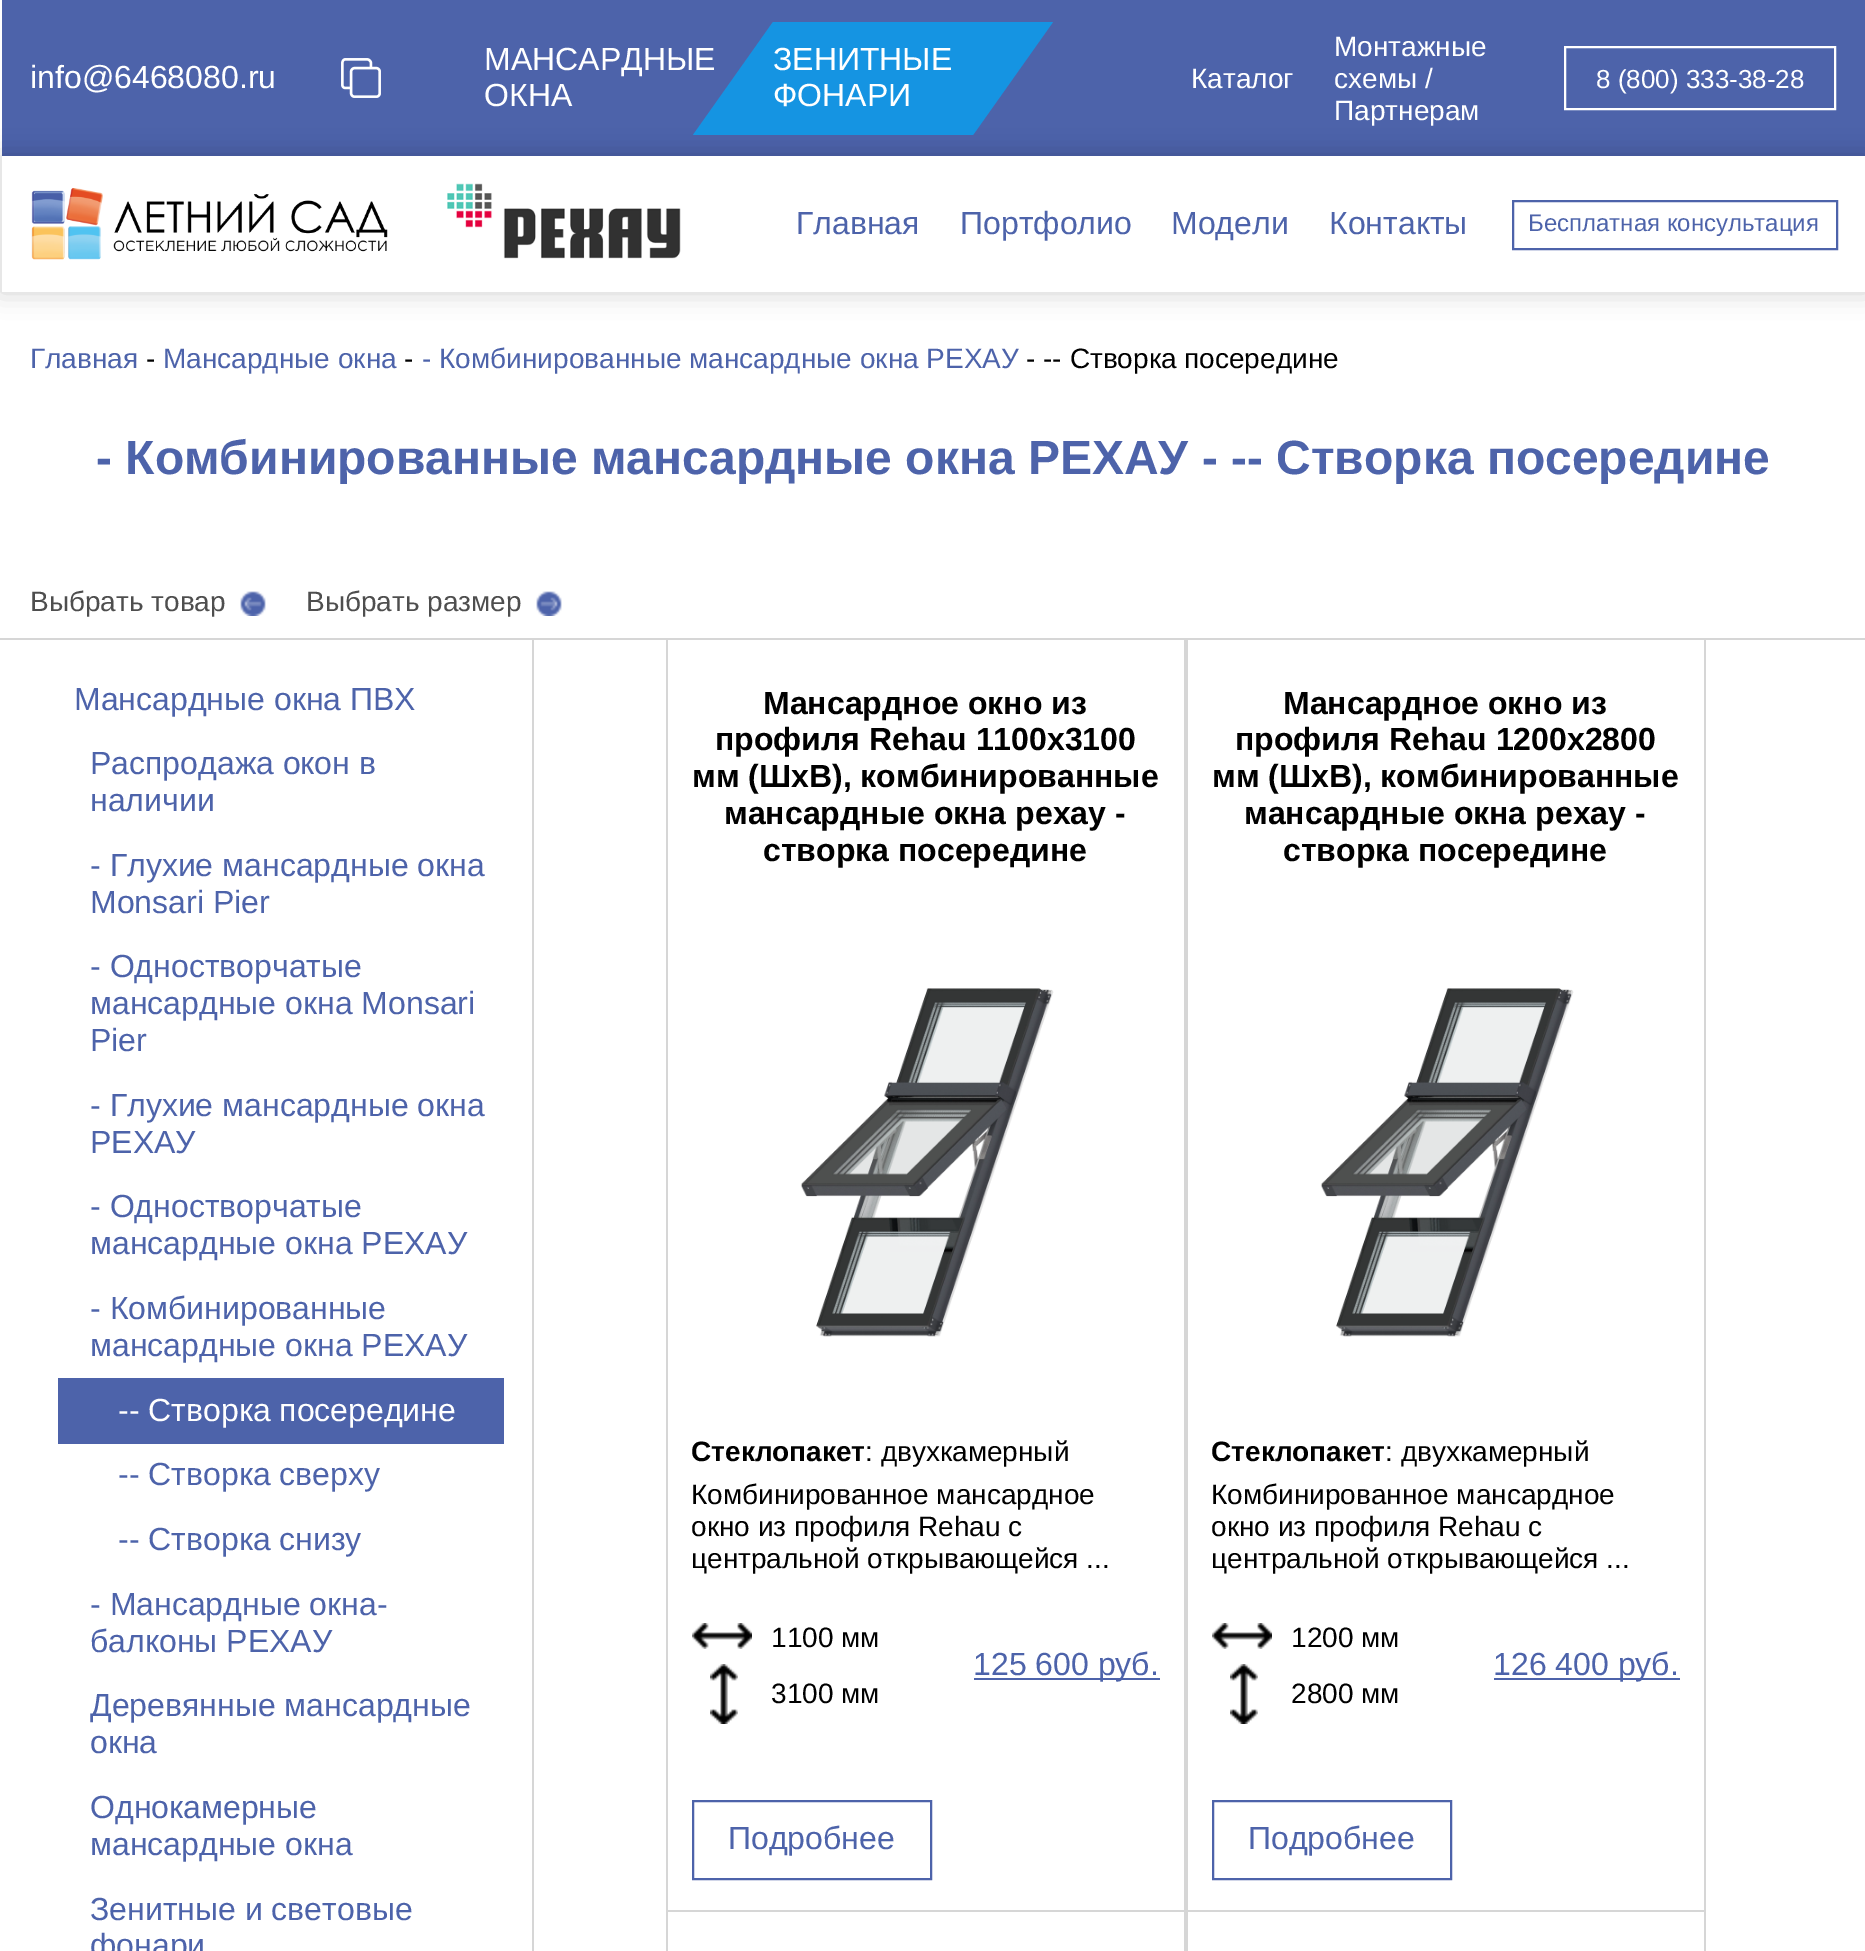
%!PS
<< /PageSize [1865 1951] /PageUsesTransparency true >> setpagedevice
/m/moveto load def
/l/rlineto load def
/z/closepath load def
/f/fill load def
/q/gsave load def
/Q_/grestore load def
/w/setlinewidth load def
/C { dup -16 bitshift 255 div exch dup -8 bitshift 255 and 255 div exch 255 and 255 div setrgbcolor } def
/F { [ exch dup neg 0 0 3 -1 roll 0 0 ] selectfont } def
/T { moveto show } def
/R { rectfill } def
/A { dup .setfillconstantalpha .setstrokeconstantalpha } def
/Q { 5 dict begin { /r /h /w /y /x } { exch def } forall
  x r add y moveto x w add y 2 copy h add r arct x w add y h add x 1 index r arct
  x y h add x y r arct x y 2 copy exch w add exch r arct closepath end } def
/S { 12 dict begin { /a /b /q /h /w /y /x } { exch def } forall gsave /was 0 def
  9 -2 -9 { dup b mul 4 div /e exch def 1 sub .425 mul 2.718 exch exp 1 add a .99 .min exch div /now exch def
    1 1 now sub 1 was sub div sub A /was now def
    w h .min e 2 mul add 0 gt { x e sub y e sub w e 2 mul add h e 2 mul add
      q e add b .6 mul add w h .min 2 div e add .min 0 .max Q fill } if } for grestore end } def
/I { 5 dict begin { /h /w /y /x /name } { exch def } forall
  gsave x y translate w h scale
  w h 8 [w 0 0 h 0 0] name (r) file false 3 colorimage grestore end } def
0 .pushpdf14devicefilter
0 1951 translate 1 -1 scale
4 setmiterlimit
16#FFFFFF C
0 0 1865 1951 R
16#4D63AA C
2 0 1863 156 R
/LiberationSans-Regular 32 F
16#FFFFFF C
(info@6468080.ru) 30 88 T
(1.rgb) 341 58 40 40 I
(МАНСАРДНЫЕ) 484 70 T
(ОКНА) 484 106 T
q
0 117 m 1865 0 l 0 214 l -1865 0 l z 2 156 m 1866 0 l 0 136 l -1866 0 l z eoclip newpath
16#000000 C
0 156 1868 136 0 12.5 .19 S
Q_
16#1594E2 C
773 22 m 280 0 l -80 113 l -280 0 l z f
16#FFFFFF C
(ЗЕНИТНЫЕ) 773 70 T
(ФОНАРИ) 773 106 T
/LiberationSans-Regular 28 F
(Каталог) 1191 88 T
(Монтажные) 1334 56 T
(схемы /) 1334 88 T
(Партнерам) 1334 120 T
2 w
1565 47 270 62 rectstroke
/LiberationSans-Regular 26 F
(8 \(800\) 333-38-28) 1596 88 T
(2.rgb) 31 188 357 72 I
(3.rgb) 447 183 234 76 I
/LiberationSans-Regular 32 F
16#4D63AA C
(Главная) 796 234 T
(Портфолио) 960 234 T
(Модели) 1171 234 T
(Контакты) 1329 234 T
1513 201 324 48 rectstroke
/LiberationSans-Regular 24 F
(Бесплатная консультация) 1528 231 T
/LiberationSans-Regular 28 F
(Главная) 30 368 T
16#000000 C
(-) 146 368 T
16#4D63AA C
(Мансардные окна) 163 368 T
16#000000 C
(-) 404 368 T
16#4D63AA C
(- Комбинированные мансардные окна РЕХАУ) 422 368 T
16#000000 C
(- -- Створка посередине) 1026 368 T
/LiberationSans-Bold 48 F
16#4D63AA C
(- Комбинированные мансардные окна РЕХАУ - -- Створка посередине) 96 474 T
/LiberationSans-Regular 28 F
16#4E4E4E C
(Выбрать товар) 30 611 T
(4.rgb) 240 591 26 25 I
(Выбрать размер) 306 611 T
(5.rgb) 536 591 26 25 I
16#D6D6D6 C
0 638 1865 2 R
532 640 2 1311 R
/LiberationSans-Regular 32 F
16#4D63AA C
(Мансардные окна ПВХ) 74 710 T
(Распродажа окон в) 90 774 T
(наличии) 90 811 T
(- Глухие мансардные окна) 90 876 T
(Monsari Pier) 90 913 T
(- Одностворчатые) 90 977 T
(мансардные окна Monsari) 90 1014 T
(Pier) 90 1051 T
(- Глухие мансардные окна) 90 1116 T
(РЕХАУ) 90 1153 T
(- Одностворчатые) 90 1217 T
(мансардные окна РЕХАУ) 90 1254 T
(- Комбинированные) 90 1319 T
(мансардные окна РЕХАУ) 90 1356 T
58 1378 446 66 R
16#FFFFFF C
(-- Створка посередине) 118 1421 T
16#4D63AA C
(-- Створка сверху) 118 1485 T
(-- Створка снизу) 118 1550 T
(- Мансардные окна-) 90 1615 T
(балконы РЕХАУ) 90 1652 T
(Деревянные мансардные) 90 1716 T
(окна) 90 1753 T
(Однокамерные) 90 1818 T
(мансардные окна) 90 1855 T
(Зенитные и световые) 90 1920 T
(фонари) 90 1956 T
16#D6D6D6 C
1184 640 2 1311 R
666 1910 520 2 R
666 640 2 1311 R
/LiberationSans-Bold 32 F
16#000000 C
(Мансардное окно из) 763 714 T
(профиля Rehau 1100x3100) 715 750 T
(мм \(ШхВ\), комбинированные) 692 787 T
(мансардные окна рехау -) 724 824 T
(створка посередине) 763 861 T
(6.rgb) 800 988 254 349 I
/LiberationSans-Bold 28 F
(Стеклопакет) 691 1461 T
/LiberationSans-Regular 28 F
(: двухкамерный) 865 1461 T
(Комбинированное мансардное) 691 1504 T
(окно из профиля Rehau с) 691 1536 T
(центральной открывающейся ...) 691 1568 T
(7.rgb) 692 1623 60 26 I
(1100 мм) 771 1647 T
(8.rgb) 710 1664 28 60 I
(3100 мм) 771 1703 T
16#4D63AA C
974 1678 186 2 R
/LiberationSans-Regular 32 F
(125 600 руб.) 973 1675 T
693 1801 238 78 rectstroke
(Подробнее) 728 1849 T
16#D6D6D6 C
1704 640 2 1311 R
1186 1910 520 2 R
1186 640 2 1311 R
/LiberationSans-Bold 32 F
16#000000 C
(Мансардное окно из) 1283 714 T
(профиля Rehau 1200x2800) 1235 750 T
(мм \(ШхВ\), комбинированные) 1212 787 T
(мансардные окна рехау -) 1244 824 T
(створка посередине) 1283 861 T
(9.rgb) 1320 988 254 349 I
/LiberationSans-Bold 28 F
(Стеклопакет) 1211 1461 T
/LiberationSans-Regular 28 F
(: двухкамерный) 1385 1461 T
(Комбинированное мансардное) 1211 1504 T
(окно из профиля Rehau с) 1211 1536 T
(центральной открывающейся ...) 1211 1568 T
(7.rgb) 1212 1623 60 26 I
(1200 мм) 1291 1647 T
(8.rgb) 1230 1664 28 60 I
(2800 мм) 1291 1703 T
16#4D63AA C
1494 1678 186 2 R
/LiberationSans-Regular 32 F
(126 400 руб.) 1493 1675 T
1213 1801 238 78 rectstroke
(Подробнее) 1248 1849 T
.poppdf14devicefilter showpage
